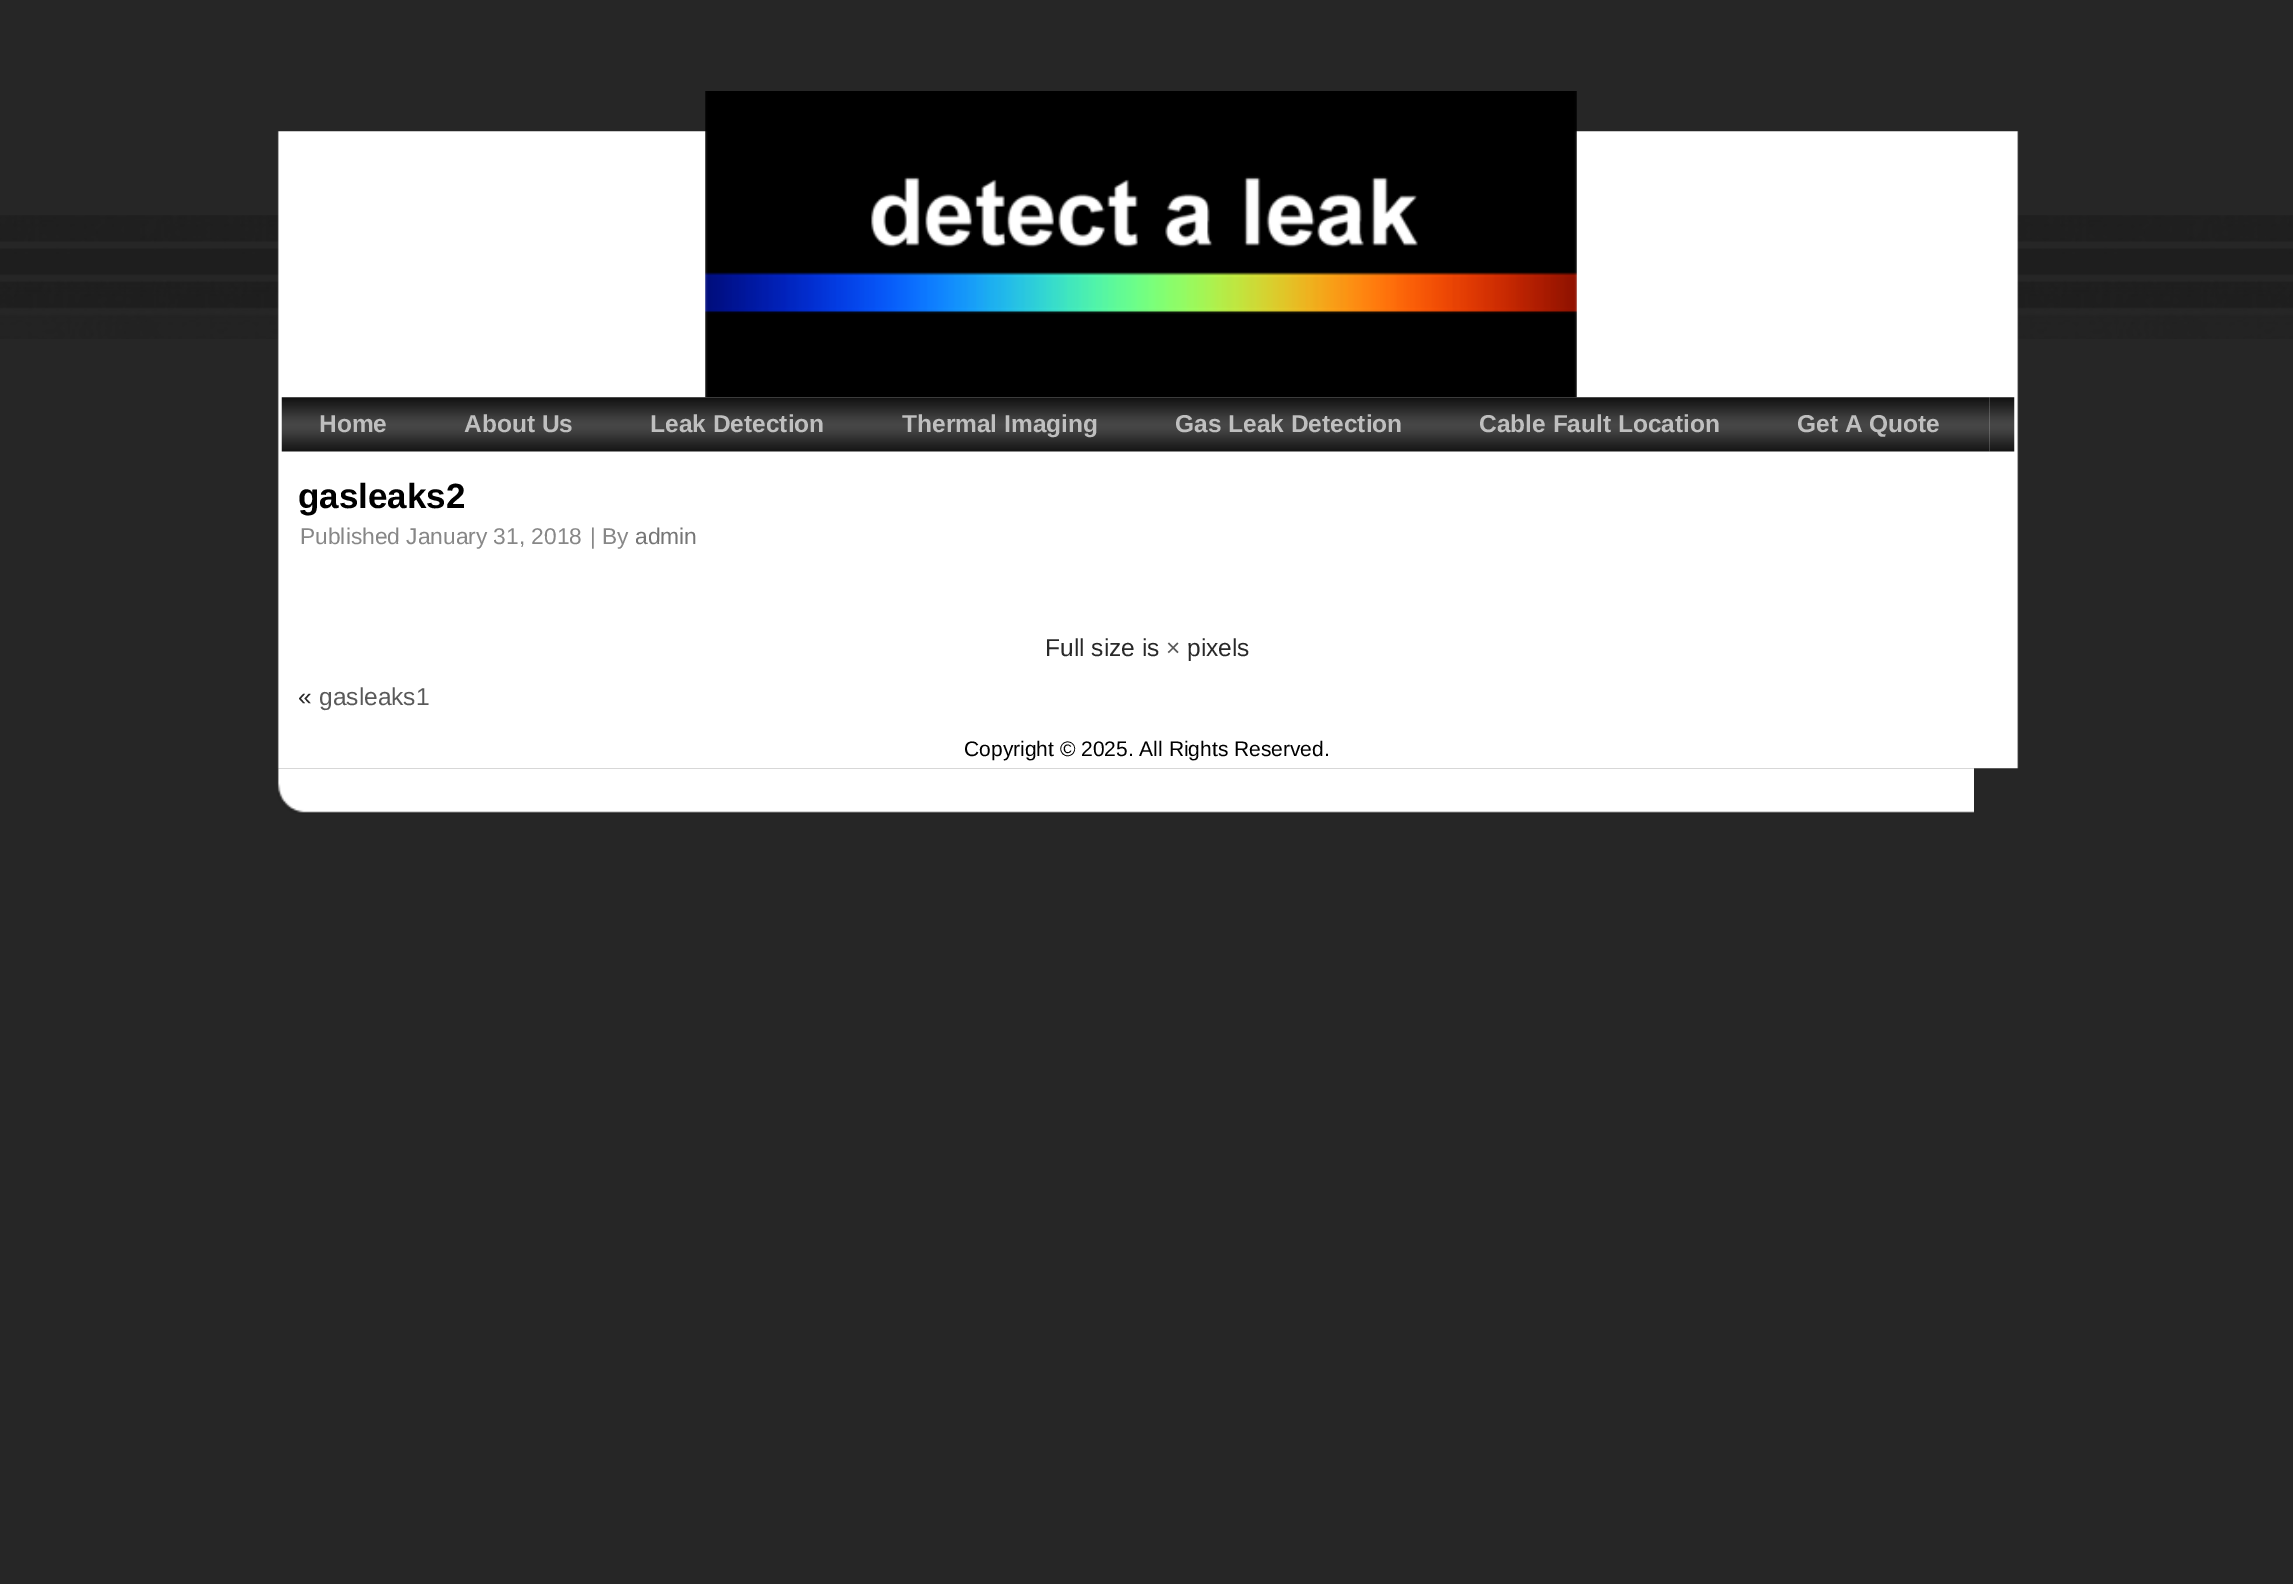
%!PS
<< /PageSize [2293 1584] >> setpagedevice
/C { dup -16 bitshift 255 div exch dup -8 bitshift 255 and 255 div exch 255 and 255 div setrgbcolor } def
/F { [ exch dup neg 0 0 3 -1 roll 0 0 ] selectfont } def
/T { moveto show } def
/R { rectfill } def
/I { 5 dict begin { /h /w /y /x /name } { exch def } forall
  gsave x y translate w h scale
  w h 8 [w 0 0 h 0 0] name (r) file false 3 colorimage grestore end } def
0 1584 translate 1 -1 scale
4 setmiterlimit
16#262626 C
0 0 2293 1584 R
(1.rgb) 0 215 2293 124 I
(7.rgb) 277 768 1697 46 I
(3.rgb) 277 131 1697 638 I
(2.rgb) 705 91 872 307 I
(4.rgb) 1974 131 45 638 I
(5.rgb) 281 397 1709 55 I
(6.rgb) 1989 397 26 55 I
/LiberationSans-Bold 24.5 F
16#BFBFBF C
(Home) 319 432 T
(About Us) 464 432 T
(Leak Detection) 650 432 T
(Thermal Imaging) 902 432 T
(Gas Leak Detection) 1175 432 T
(Cable Fault Location) 1479 432 T
(Get A Quote) 1797 432 T
/LiberationSans-Bold 35 F
16#000000 C
(gasleaks2) 298 508 T
/LiberationSans-Regular 22.75 F
16#878787 C
(Published January 31, 2018) 300 544 T
(| By) 590 544 T
16#757575 C
(admin) 635 544 T
/LiberationSans-Regular 24.5 F
16#292929 C
(Full size is) 1045 656 T
16#595959 C
(×) 1166 656 T
16#292929 C
(pixels) 1187 656 T
(«) 298 705 T
16#595959 C
(gasleaks1) 319 705 T
/LiberationSans-Regular 21 F
16#000000 C
(Copyright © 2025. All Rights Reserved.) 964 756 T
showpage
